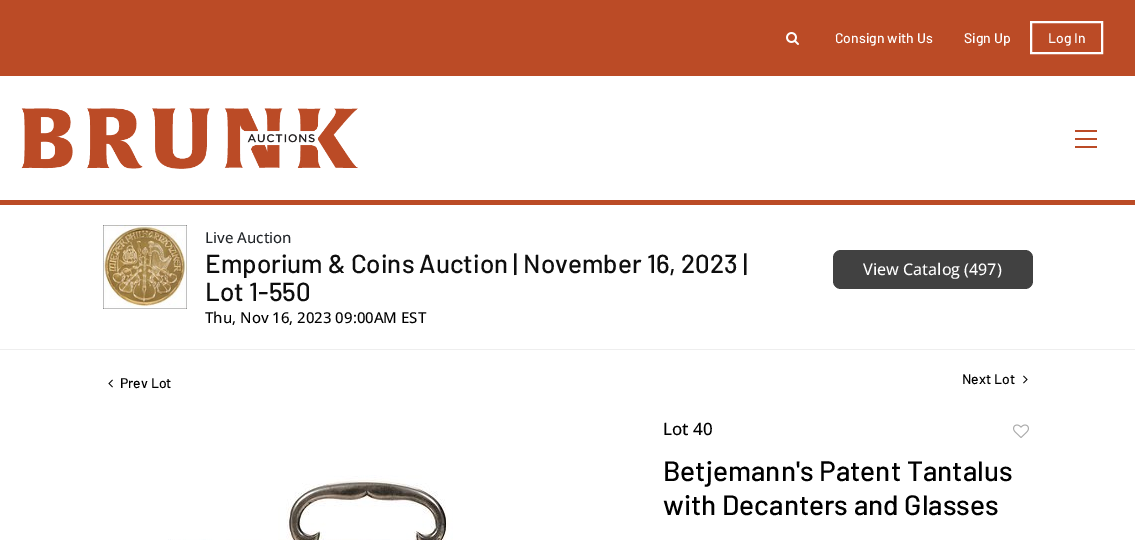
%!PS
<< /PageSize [1135 540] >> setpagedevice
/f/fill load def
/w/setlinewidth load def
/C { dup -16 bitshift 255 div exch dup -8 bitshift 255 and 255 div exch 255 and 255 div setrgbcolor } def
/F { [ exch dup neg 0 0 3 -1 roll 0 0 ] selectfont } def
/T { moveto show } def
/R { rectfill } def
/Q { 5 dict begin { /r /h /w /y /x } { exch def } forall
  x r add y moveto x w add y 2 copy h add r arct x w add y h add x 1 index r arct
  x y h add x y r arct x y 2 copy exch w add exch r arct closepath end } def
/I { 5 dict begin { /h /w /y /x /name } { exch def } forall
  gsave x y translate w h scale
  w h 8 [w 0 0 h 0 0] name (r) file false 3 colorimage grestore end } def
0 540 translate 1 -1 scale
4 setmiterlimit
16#FFFFFF C
0 0 1135 540 R
16#BB4B26 C
0 0 1135 76 R
(1.rgb) 786 32 13 13 I
/Barlow-Medium 14 F
16#FFFFFF C
(Consign with Us) 835 43 T
(Sign Up) 964 43 T
2 w
1031 22 71 31 rectstroke
(Log In) 1048 43 T
16#BB4B26 C
0 200 1135 5 R
(2.rgb) 21 108 337 61 I
1075 130 22 2 R
1075 138 22 2 R
1075 146 22 2 R
(3.rgb) 103 225 84 84 I
/OpenSans-Medium 15 F
16#212529 C
(Live Auction) 205 243 T
/Barlow-Medium 26 F
16#0E0E0E C
(Emporium & Coins Auction | November 16, 2023 |) 205 273 T
(Lot 1-550) 205 301 T
/OpenSans-Medium 15 F
16#000000 C
(Thu, Nov 16, 2023 09:00AM EST) 205 323 T
16#414141 C
833 250 200 39 8 Q f
/OpenSans-Medium 16 F
16#FFFFFF C
(View Catalog \(497\)) 863 275 T
16#EEEEEE C
0 349 1135 1 R
(4.rgb) 108 379 5 9 I
/Barlow-Medium 14 F
16#000000 C
(Prev Lot) 120 388 T
(Next Lot) 962 384 T
(5.rgb) 1023 375 5 9 I
(6.rgb) 168 475 285 65 I
/OpenSans-Medium 17 F
(Lot 40) 663 435 T
(7.rgb) 1013 424 16 14 I
/Barlow-Medium 28 F
(Betjemann's Patent Tantalus) 663 481 T
(with Decanters and Glasses) 663 515 T
showpage
